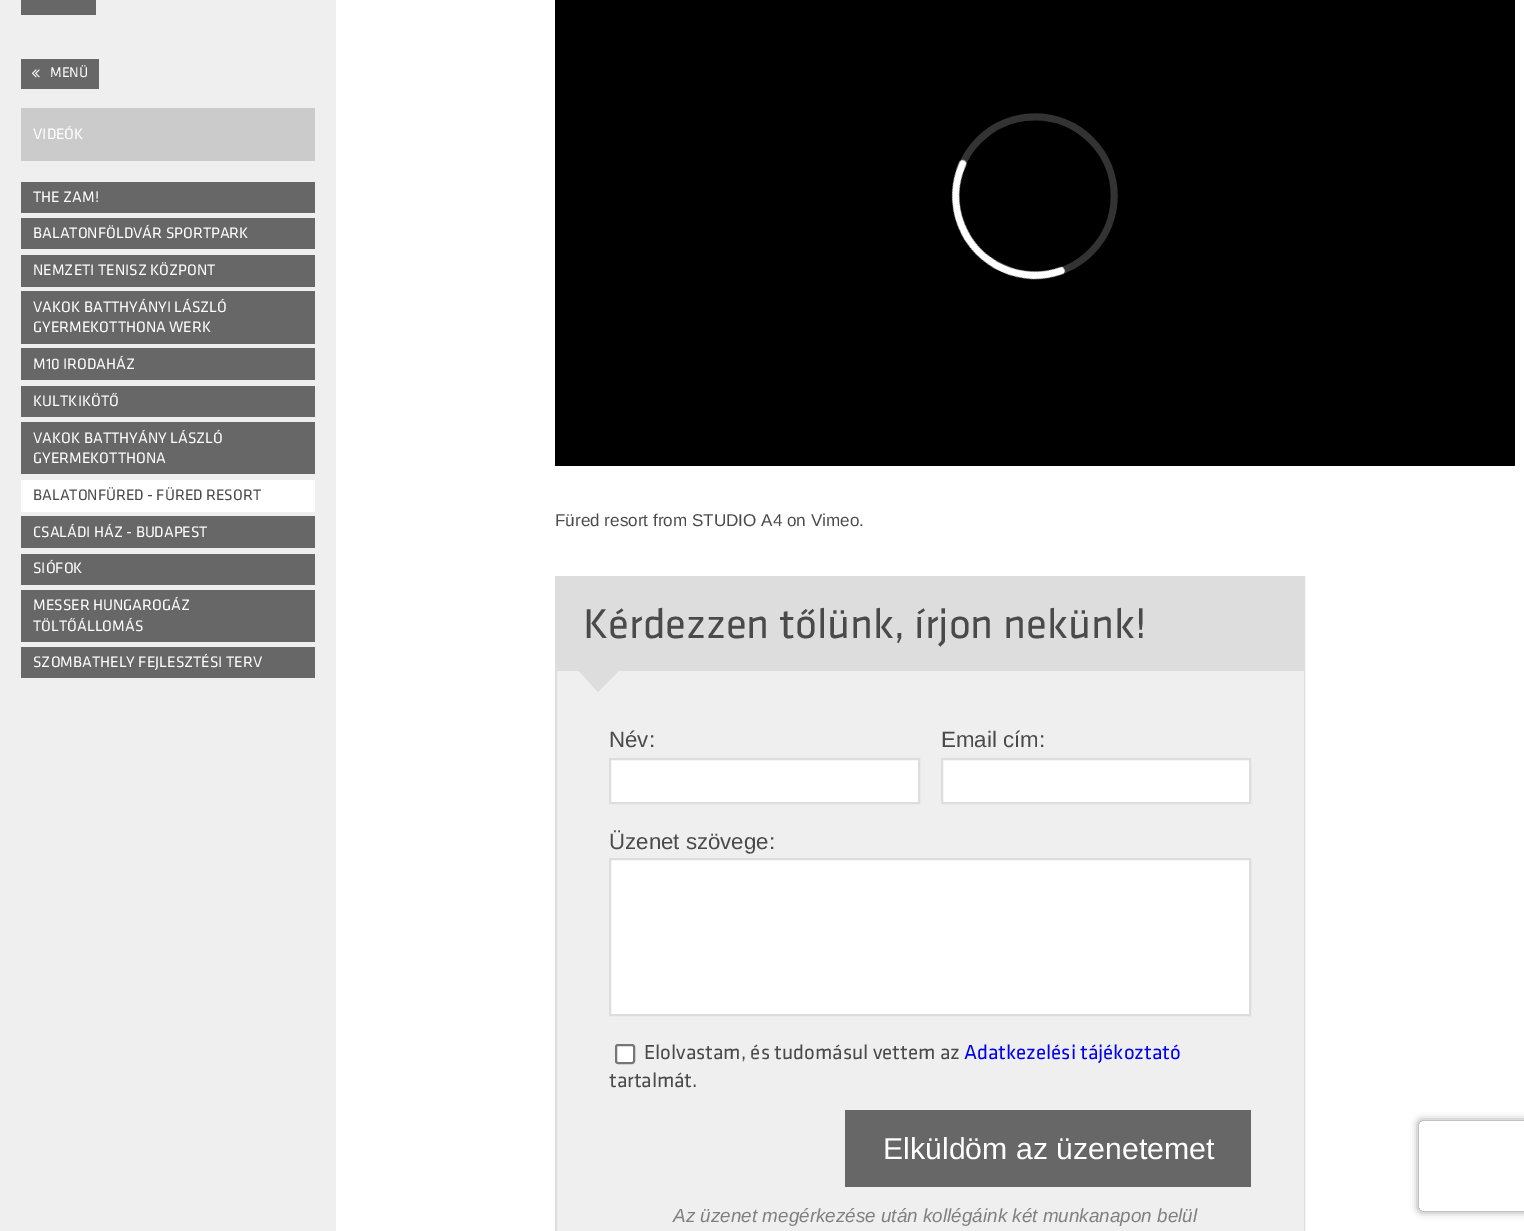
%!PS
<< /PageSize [1524 1231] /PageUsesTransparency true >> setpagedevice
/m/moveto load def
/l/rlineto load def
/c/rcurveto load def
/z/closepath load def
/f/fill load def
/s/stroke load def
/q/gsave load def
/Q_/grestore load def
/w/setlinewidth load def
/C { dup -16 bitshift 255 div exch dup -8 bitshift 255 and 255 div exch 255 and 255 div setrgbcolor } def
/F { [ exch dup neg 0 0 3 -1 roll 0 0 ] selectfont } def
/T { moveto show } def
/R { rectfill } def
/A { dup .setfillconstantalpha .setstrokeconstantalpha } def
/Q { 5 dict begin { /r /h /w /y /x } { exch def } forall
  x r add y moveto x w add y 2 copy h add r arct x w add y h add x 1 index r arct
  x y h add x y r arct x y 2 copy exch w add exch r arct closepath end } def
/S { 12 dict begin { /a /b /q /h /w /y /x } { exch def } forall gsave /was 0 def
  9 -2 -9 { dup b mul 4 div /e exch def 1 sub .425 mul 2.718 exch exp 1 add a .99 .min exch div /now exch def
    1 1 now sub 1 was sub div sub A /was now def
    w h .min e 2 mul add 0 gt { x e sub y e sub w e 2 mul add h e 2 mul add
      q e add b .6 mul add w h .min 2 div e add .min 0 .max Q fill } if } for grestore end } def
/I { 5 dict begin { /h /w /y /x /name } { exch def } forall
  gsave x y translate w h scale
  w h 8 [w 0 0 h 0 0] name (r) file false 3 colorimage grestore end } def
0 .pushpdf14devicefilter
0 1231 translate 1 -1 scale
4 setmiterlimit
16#FFFFFF C
0 0 1524 1231 R
16#EFEFEF C
0 0 336 1231 R
16#676767 C
21 0 75 15 R
21 59 78 30 R
(1.rgb) 31 69 9 9 I
/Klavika-Regular 14.5 F
16#FFFFFF C
(MENÜ) 50 77 T
16#CBCBCB C
21 108 294 53 R
/Klavika-Regular 15.75 F
16#FFFFFF C
(VIDEÓK) 33 139 T
16#676767 C
21 182 294 31 R
16#FFFFFF C
(THE ZAM!) 33 202 T
16#676767 C
21 218 294 31 R
16#FFFFFF C
(BALATONFÖLDVÁR SPORTPARK) 33 238 T
16#676767 C
21 255 294 32 R
16#FFFFFF C
(NEMZETI TENISZ KÖZPONT) 33 275 T
16#676767 C
21 291 294 53 R
16#FFFFFF C
(VAKOK BATTHYÁNYI LÁSZLÓ) 33 312 T
(GYERMEKOTTHONA WERK) 33 332 T
16#676767 C
21 348 294 32 R
16#FFFFFF C
(M10 IRODAHÁZ) 33 369 T
16#676767 C
21 386 294 31 R
16#FFFFFF C
(KULTKIKÖTŐ) 33 406 T
16#676767 C
21 422 294 52 R
16#FFFFFF C
(VAKOK BATTHYÁNY LÁSZLÓ) 33 443 T
(GYERMEKOTTHONA) 33 463 T
21 480 294 32 R
16#4A4A4A C
(BALATONFÜRED - FÜRED RESORT) 33 500 T
16#676767 C
21 516 294 32 R
16#FFFFFF C
(CSALÁDI HÁZ - BUDAPEST) 33 537 T
16#676767 C
21 554 294 31 R
16#FFFFFF C
(SIÓFOK) 33 573 T
16#676767 C
21 590 294 52 R
16#FFFFFF C
(MESSER HUNGAROGÁZ) 33 610 T
(TÖLTŐÁLLOMÁS) 33 631 T
16#676767 C
21 647 294 31 R
16#FFFFFF C
(SZOMBATHELY FEJLESZTÉSI TERV) 33 667 T
(2.rgb) 555 0 960 466 I
/LiberationSans-Regular 17.1 F
16#4A4A4A C
(Füred resort from STUDIO A4 on Vimeo.) 555 526 T
16#DDDDDD C
2 w
556 577 748 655 rectstroke
557 578 746 93 R
/Klavika-Regular 43.25 F
16#4A4A4A C
(Kérdezzen tőlünk, írjon nekünk!) 583 638 T
16#EFEFEF C
557 671 747 560 R
16#DDDDDD C
578 670 m 42 0 l -22 22 l z f
/LiberationSans-Regular 22.25 F
16#4A4A4A C
(Név:) 609 747 T
16#FFFFFF C
610 759 m 309 0 l 0 44 l -309 0 l z q f Q_
16#DDDDDD C
s
16#4A4A4A C
(Email cím:) 941 747 T
16#FFFFFF C
942 759 m 308 0 l 0 44 l -308 0 l z q f Q_
16#DDDDDD C
s
16#4A4A4A C
(Üzenet szövege:) 609 849 T
16#FFFFFF C
610 859 m 640 0 l 0 156 l -640 0 l z q f Q_
16#DDDDDD C
s
16#FFFFFF C
616 1045 18 18 2 Q q f Q_
16#767676 C
s
/Klavika-Regular 21 F
16#4A4A4A C
(Elolvastam, és tudomásul vettem az) 644 1059 T
16#0000EE C
(Adatkezelési tájékoztató) 964 1059 T
16#4A4A4A C
(tartalmát.) 609 1087 T
16#676767 C
845 1110 406 77 R
/LiberationSans-Regular 30.25 F
16#FFFFFF C
(Elküldöm az üzenetemet) 883 1159 T
/LiberationSans-Italic 18.9 F
16#808080 C
(Az üzenet megérkezése után kollégáink két munkanapon belül) 673 1222 T
q
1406 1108 m 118 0 l 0 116 l -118 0 l z 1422 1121 m 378 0 l 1.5 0 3 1.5 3 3 c 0 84 l 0 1.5 -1.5 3 -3 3 c -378 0 l -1.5 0 -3 -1.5 -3 -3 c 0 -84 l 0 -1.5 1.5 -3 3 -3 c z eoclip newpath
1419 1121 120 90 3 4 1 S
Q_
.poppdf14devicefilter showpage
